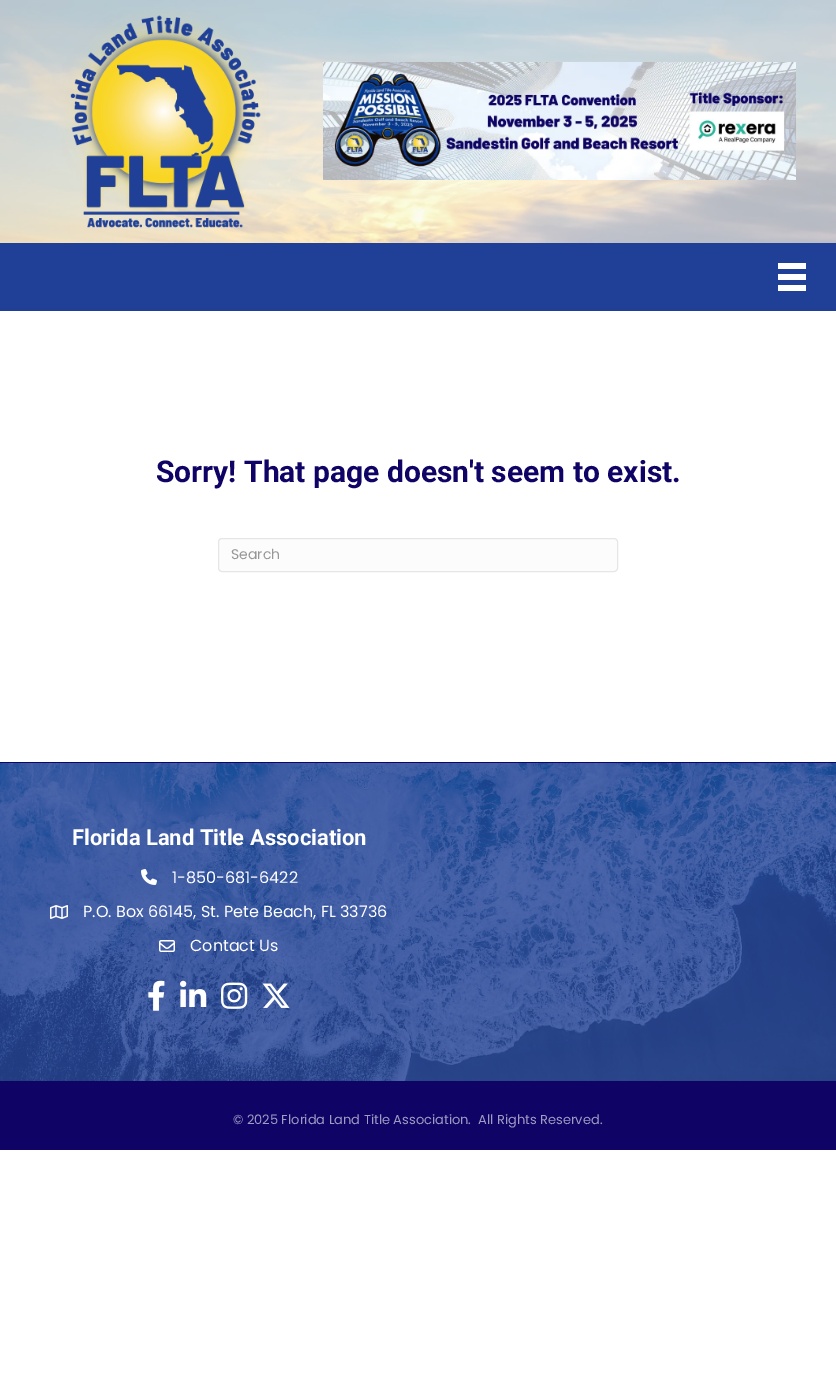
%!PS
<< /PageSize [836 1399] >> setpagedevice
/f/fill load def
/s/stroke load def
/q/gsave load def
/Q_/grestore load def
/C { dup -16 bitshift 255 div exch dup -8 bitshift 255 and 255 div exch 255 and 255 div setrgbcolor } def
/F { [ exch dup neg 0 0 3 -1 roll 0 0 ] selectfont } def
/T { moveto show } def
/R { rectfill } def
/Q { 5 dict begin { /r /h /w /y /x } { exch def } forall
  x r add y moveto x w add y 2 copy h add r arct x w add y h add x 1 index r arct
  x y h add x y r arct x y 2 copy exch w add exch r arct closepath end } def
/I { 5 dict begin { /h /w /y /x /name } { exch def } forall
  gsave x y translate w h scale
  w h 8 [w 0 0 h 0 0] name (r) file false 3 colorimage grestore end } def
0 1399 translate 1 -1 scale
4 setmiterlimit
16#FFFFFF C
0 0 836 1399 R
(1.rgb) 0 0 836 243 I
(2.rgb) 62 10 207 218 I
(3.rgb) 323 62 473 118 I
16#1F4096 C
0 243 836 68 R
16#FFFFFF C
778 263 28 6 R
778 274 28 6 R
778 285 28 6 R
/Roboto-Bold 30 F
16#0F0466 C
(Sorry! That page doesn't seem to exist.) 156 482 T
16#FCFCFC C
218.5 538.5 399 33 3.5 Q q f Q_
16#E6E6E6 C
s
/Poppins-Regular 14 F
16#979797 C
(Search) 231 559 T
(4.rgb) 0 763 836 318 I
16#0F0466 C
0 762 836 1 R
/Roboto-Bold 22 F
16#FFFFFF C
(Florida Land Title Association) 72 845 T
(5.rgb) 141 869 16 16 I
/Poppins-Regular 16 F
(1-850-681-6422) 172 883 T
(6.rgb) 50 905 18 14 I
(P.O. Box 66145, St. Pete Beach, FL 33736) 83 917 T
(7.rgb) 159 940 16 12 I
(Contact Us) 190 951 T
(8.rgb) 148 980 17 31 I
(9.rgb) 180 980 27 27 I
(10.rgb) 221 982 27 27 I
(11.rgb) 262 983 28 25 I
16#0F0466 C
0 1081 836 69 R
/Poppins-Regular 13 F
16#9F9BC2 C
(© 2025 Florida Land Title Association.) 233 1124 T
(All Rights Reserved.) 478 1124 T
showpage
